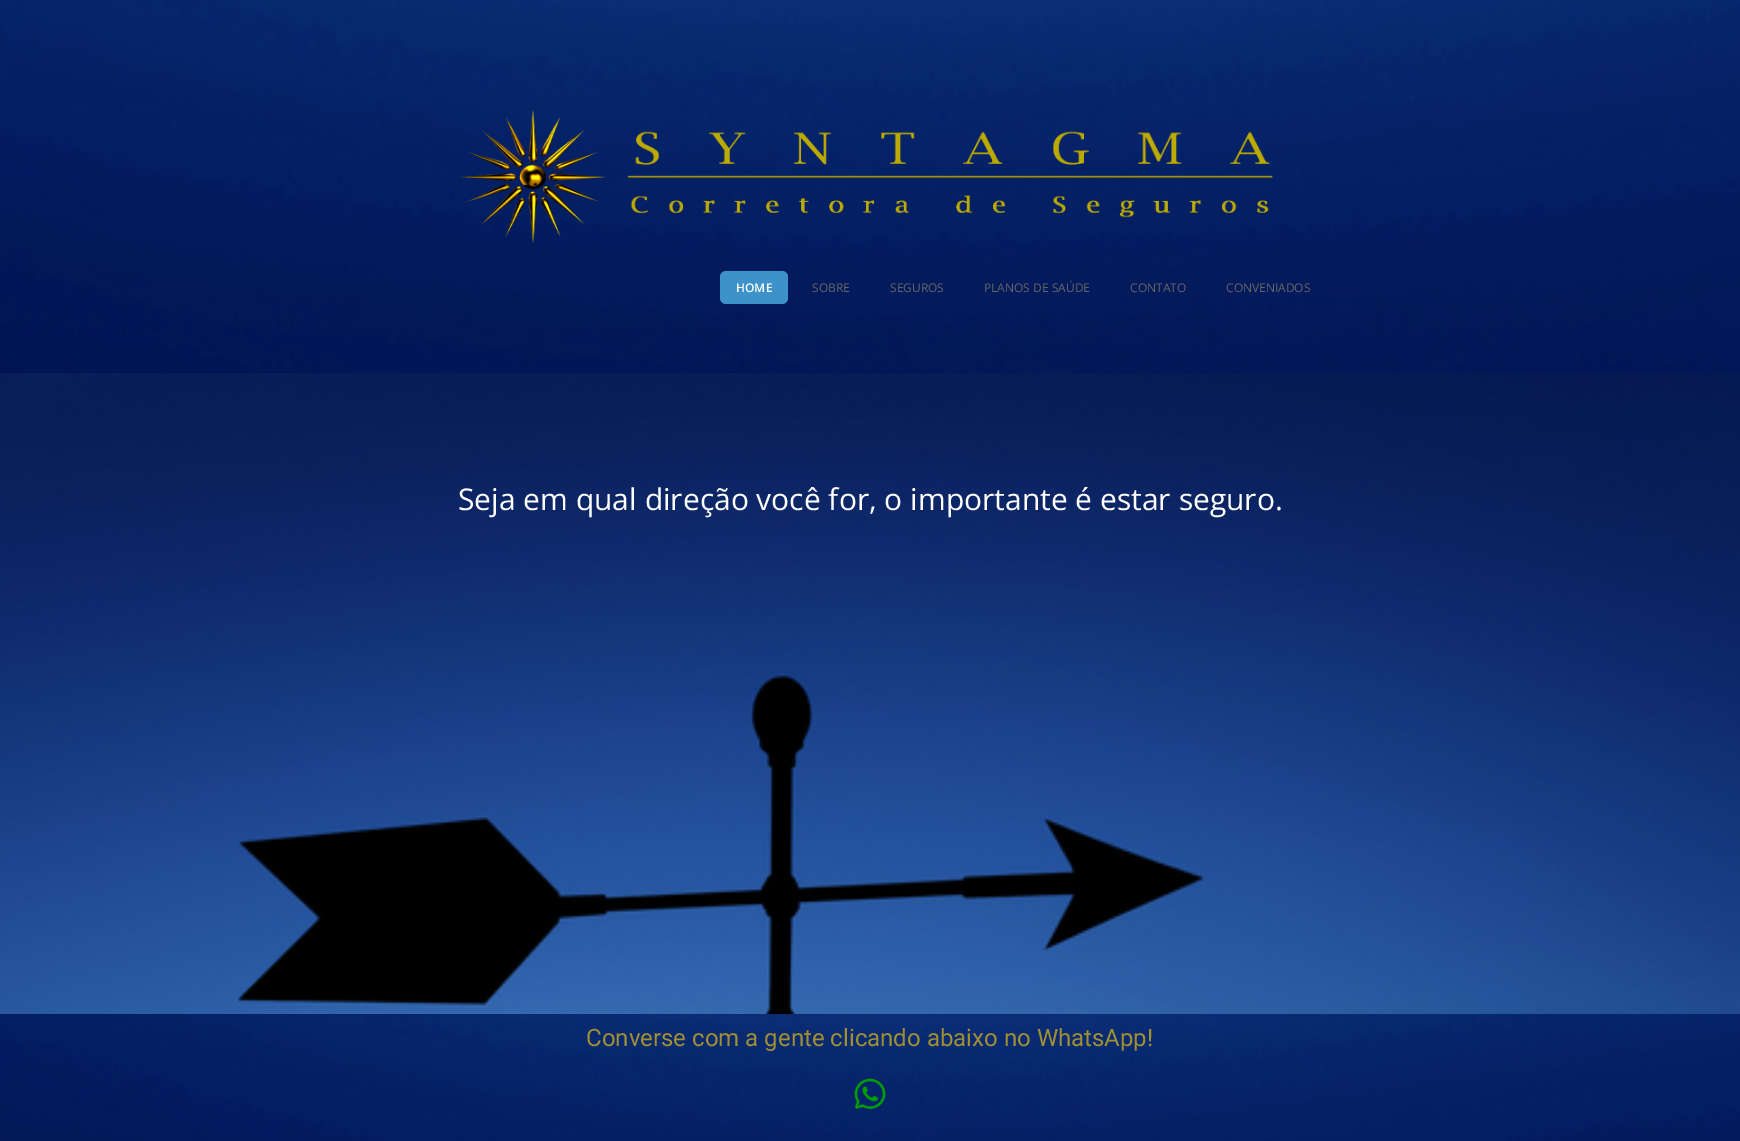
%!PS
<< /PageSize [1740 1141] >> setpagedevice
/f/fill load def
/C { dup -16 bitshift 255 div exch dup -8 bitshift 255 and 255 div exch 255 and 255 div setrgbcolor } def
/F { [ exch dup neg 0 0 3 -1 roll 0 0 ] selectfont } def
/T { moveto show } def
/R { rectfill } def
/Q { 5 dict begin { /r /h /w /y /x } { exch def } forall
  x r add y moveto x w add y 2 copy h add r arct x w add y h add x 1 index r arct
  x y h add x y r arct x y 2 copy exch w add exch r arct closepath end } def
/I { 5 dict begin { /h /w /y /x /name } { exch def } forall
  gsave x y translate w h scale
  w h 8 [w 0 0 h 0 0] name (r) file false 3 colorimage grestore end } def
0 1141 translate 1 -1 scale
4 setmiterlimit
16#FFFFFF C
0 0 1740 1141 R
(1.rgb) 0 0 1740 373 I
(2.rgb) 460 110 813 134 I
16#3D92CA C
720 271 68 33 6 Q f
/OpenSans-SemiBold 12 F
16#FFFFFF C
(HOME) 736 292 T
/OpenSans-Regular 12 F
16#666666 C
(SOBRE) 812 292 T
(SEGUROS) 890 292 T
(PLANOS DE SAÚDE) 984 292 T
(CONTATO) 1130 292 T
(CONVENIADOS) 1226 292 T
(3.rgb) 0 373 1740 641 I
/OpenSans-Regular 30 F
16#FFFFFF C
(Seja em qual direção você for, o importante é estar seguro.) 458 510 T
(4.rgb) 0 1014 1740 127 I
/Roboto-Regular 24 F
16#A19032 C
(Converse com a gente clicando abaixo no WhatsApp!) 586 1046 T
(5.rgb) 854 1078 32 31 I
showpage
